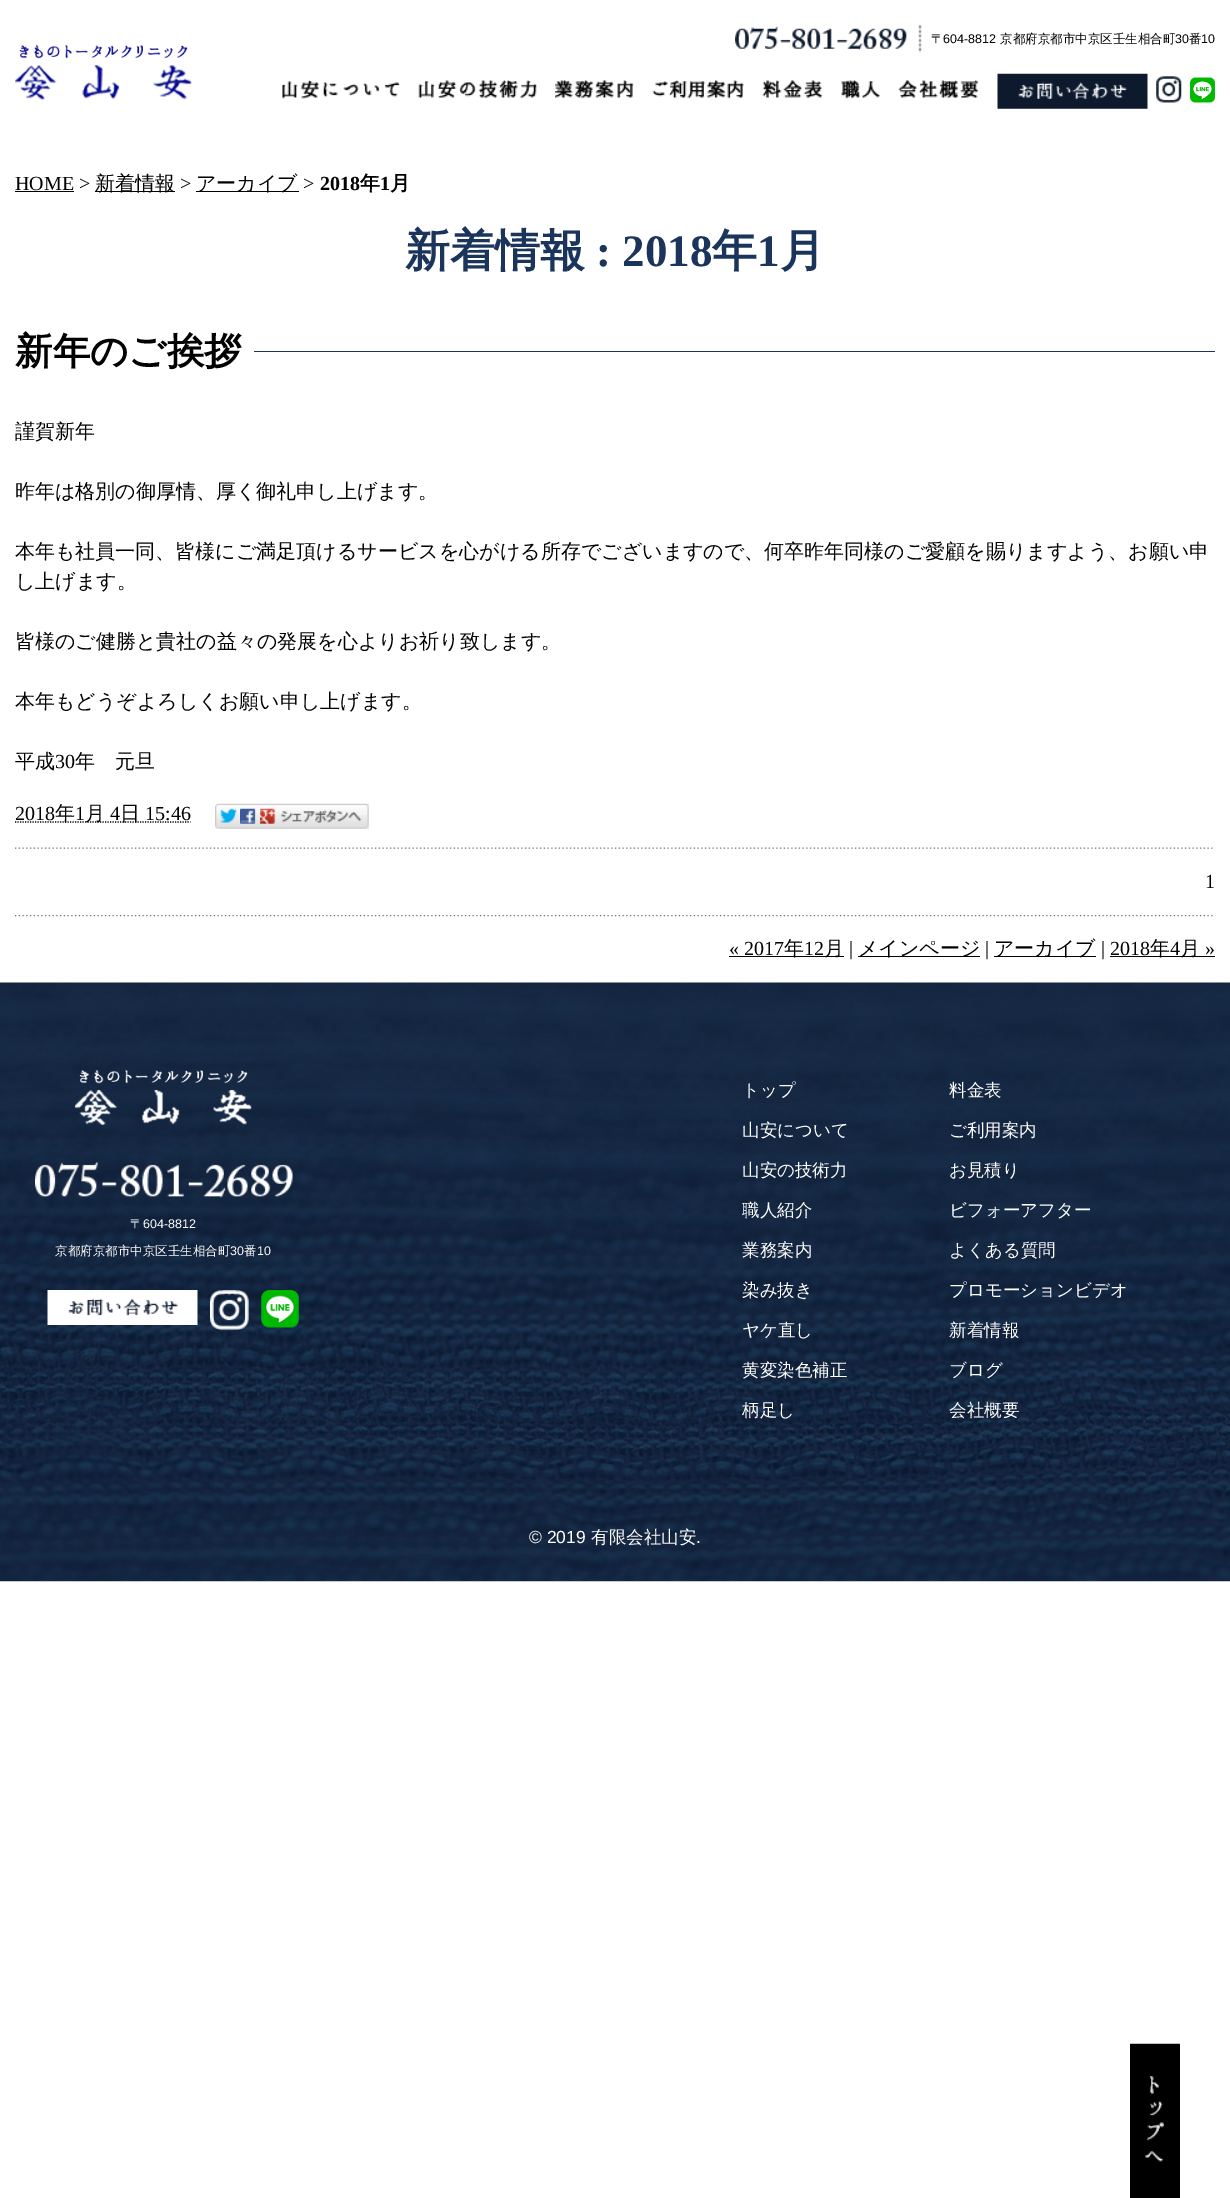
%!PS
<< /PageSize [1230 2198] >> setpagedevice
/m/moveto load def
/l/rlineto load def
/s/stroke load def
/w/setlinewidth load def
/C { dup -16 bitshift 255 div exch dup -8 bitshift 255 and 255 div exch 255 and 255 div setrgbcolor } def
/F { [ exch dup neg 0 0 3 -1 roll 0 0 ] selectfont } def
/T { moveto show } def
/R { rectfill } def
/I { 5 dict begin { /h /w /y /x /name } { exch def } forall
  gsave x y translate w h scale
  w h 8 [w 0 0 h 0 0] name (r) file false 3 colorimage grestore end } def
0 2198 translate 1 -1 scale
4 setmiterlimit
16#FFFFFF C
0 0 1230 2198 R
(1.rgb) 735 25 187 28 I
/WenQuanYiZenHei-Medium 12.5 F
16#000000 C
(〒) 931 43 T
/LiberationSans-Regular 12.5 F
(604-8812) 943 43 T
/WenQuanYiZenHei-Medium 12.5 F
(京都府京都市中京区壬生相合町) 1000 43 T
/LiberationSans-Regular 12.5 F
(30) 1175 43 T
/WenQuanYiZenHei-Medium 12.5 F
(番) 1189 43 T
/LiberationSans-Regular 12.5 F
(10) 1201 43 T
(2.rgb) 282 80 118 19 I
(3.rgb) 418 80 119 19 I
(4.rgb) 555 80 79 19 I
(5.rgb) 652 80 92 19 I
(6.rgb) 762 80 61 19 I
(7.rgb) 841 80 39 19 I
(8.rgb) 898 80 81 19 I
(9.rgb) 997 73 151 36 I
(10.rgb) 1156 76 26 27 I
(11.rgb) 1190 77 25 26 I
(12.rgb) 15 45 177 55 I
/LiberationSerif-Regular 20 F
(HOME >) 15 190 T
15 191 59 1 R
95 191 80 1 R
/WenQuanYiZenHei-Medium 20 F
(新着情報) 95 190 T
/LiberationSerif-Regular 20 F
(>) 180 190 T
196 191 103 1 R
/WenQuanYiZenHei-Medium 20 F
(アーカイブ) 196 190 T
/LiberationSerif-Regular 20 F
(>) 303 190 T
/LiberationSerif-Bold 20 F
(2018) 320 190 T
/WenQuanYiZenHei-Bold 20 F
(年) 360 190 T
/LiberationSerif-Bold 20 F
(1) 380 190 T
/WenQuanYiZenHei-Bold 20 F
(月) 390 190 T
/WenQuanYiZenHei-Bold 45 F
16#1A345B C
(新着情報) 405 266 T
/LiberationSerif-Bold 45 F
(: 2018) 596 266 T
/WenQuanYiZenHei-Bold 45 F
(年) 712 266 T
/LiberationSerif-Bold 45 F
(1) 757 266 T
/WenQuanYiZenHei-Bold 45 F
(月) 780 266 T
/WenQuanYiZenHei-Bold 37.5 F
16#000000 C
(新年のご挨拶) 15 364 T
16#1A345B C
254 351 961 1 R
/WenQuanYiZenHei-Medium 20 F
16#000000 C
(謹賀新年) 15 438 T
(昨年は格別の御厚情、厚く御礼申し上げます。) 15 498 T
(本年も社員一同、皆様にご満足頂けるサービスを心がける所存でございますので、何卒昨年同様のご愛顧を賜りますよう、お願い申) 15 558 T
(し上げます。) 15 588 T
(皆様のご健勝と貴社の益々の発展を心よりお祈り致します。) 15 648 T
(本年もどうぞよろしくお願い申し上げます。) 15 708 T
(平成) 15 768 T
/LiberationSerif-Regular 20 F
(30) 55 768 T
/WenQuanYiZenHei-Medium 20 F
(年　元旦) 75 768 T
/LiberationSerif-Regular 20 F
(2018) 15 820 T
1.2 w
[1.25 1.25] 0 setdash
15 822 m 175.5 0 l s
/WenQuanYiZenHei-Medium 20 F
(年) 55 820 T
/LiberationSerif-Regular 20 F
(1) 75 820 T
/WenQuanYiZenHei-Medium 20 F
(月) 85 820 T
/LiberationSerif-Regular 20 F
(4) 110 820 T
/WenQuanYiZenHei-Medium 20 F
(日) 120 820 T
/LiberationSerif-Regular 20 F
(15:46) 145 820 T
(13.rgb) 215 803 4 26 I
(14.rgb) 218 803 22 26 I
(15.rgb) 240 803 20 26 I
(16.rgb) 260 803 20 26 I
(17.rgb) 280 803 89 26 I
(18.rgb) 15 847 1200 2 I
(1) 1205 888 T
(19.rgb) 15 915 1200 2 I
(« 2017) 729 955 T
729 956 115 1 R
/WenQuanYiZenHei-Medium 20 F
(年) 784 955 T
/LiberationSerif-Regular 20 F
(12) 804 955 T
/WenQuanYiZenHei-Medium 20 F
(月) 824 955 T
/LiberationSerif-Regular 20 F
(|) 849 955 T
858 956 122 1 R
/WenQuanYiZenHei-Medium 20 F
(メインページ) 858 955 T
/LiberationSerif-Regular 20 F
(|) 985 955 T
994 956 102 1 R
/WenQuanYiZenHei-Medium 20 F
(アーカイブ) 994 955 T
/LiberationSerif-Regular 20 F
(| 2018) 1101 955 T
1110 956 105 1 R
/WenQuanYiZenHei-Medium 20 F
(年) 1150 955 T
/LiberationSerif-Regular 20 F
(4) 1170 955 T
/WenQuanYiZenHei-Medium 20 F
(月) 1180 955 T
/LiberationSerif-Regular 20 F
(») 1205 955 T
1130 2162 50 36 R
(20.rgb) 1130 2043 50 119 I
(21.rgb) 0 982 1230 600 I
(22.rgb) 75 1070 177 55 I
(23.rgb) 35 1162 258 36 I
/WenQuanYiZenHei-Medium 12.5 F
16#FFFFFF C
(〒) 130 1228 T
/LiberationSans-Regular 12.5 F
(604-8812) 143 1228 T
/WenQuanYiZenHei-Medium 12.5 F
(京都府京都市中京区壬生相合町) 55 1255 T
/LiberationSans-Regular 12.5 F
(30) 230 1255 T
/WenQuanYiZenHei-Medium 12.5 F
(番) 244 1255 T
/LiberationSans-Regular 12.5 F
(10) 257 1255 T
(24.rgb) 47 1290 151 35 I
(25.rgb) 210 1290 39 40 I
(26.rgb) 261 1290 38 38 I
/WenQuanYiZenHei-Medium 17.5 F
(トップ) 742 1096 T
(山安について) 742 1136 T
(山安の技術力) 742 1176 T
(職人紹介) 742 1216 T
(業務案内) 742 1256 T
(染み抜き) 742 1296 T
(ヤケ直し) 742 1336 T
(黄変染色補正) 742 1376 T
(柄足し) 742 1416 T
(料金表) 949 1096 T
(ご利用案内) 949 1136 T
(お見積り) 949 1176 T
(ビフォーアフター) 949 1216 T
(よくある質問) 949 1256 T
(プロモーションビデオ) 949 1296 T
(新着情報) 949 1336 T
(ブログ) 949 1376 T
(会社概要) 949 1416 T
/LiberationSans-Regular 17.5 F
(© 2019) 529 1543 T
/WenQuanYiZenHei-Medium 17.5 F
(有限会社山安) 591 1543 T
/LiberationSans-Regular 17.5 F
(.) 696 1543 T
showpage
